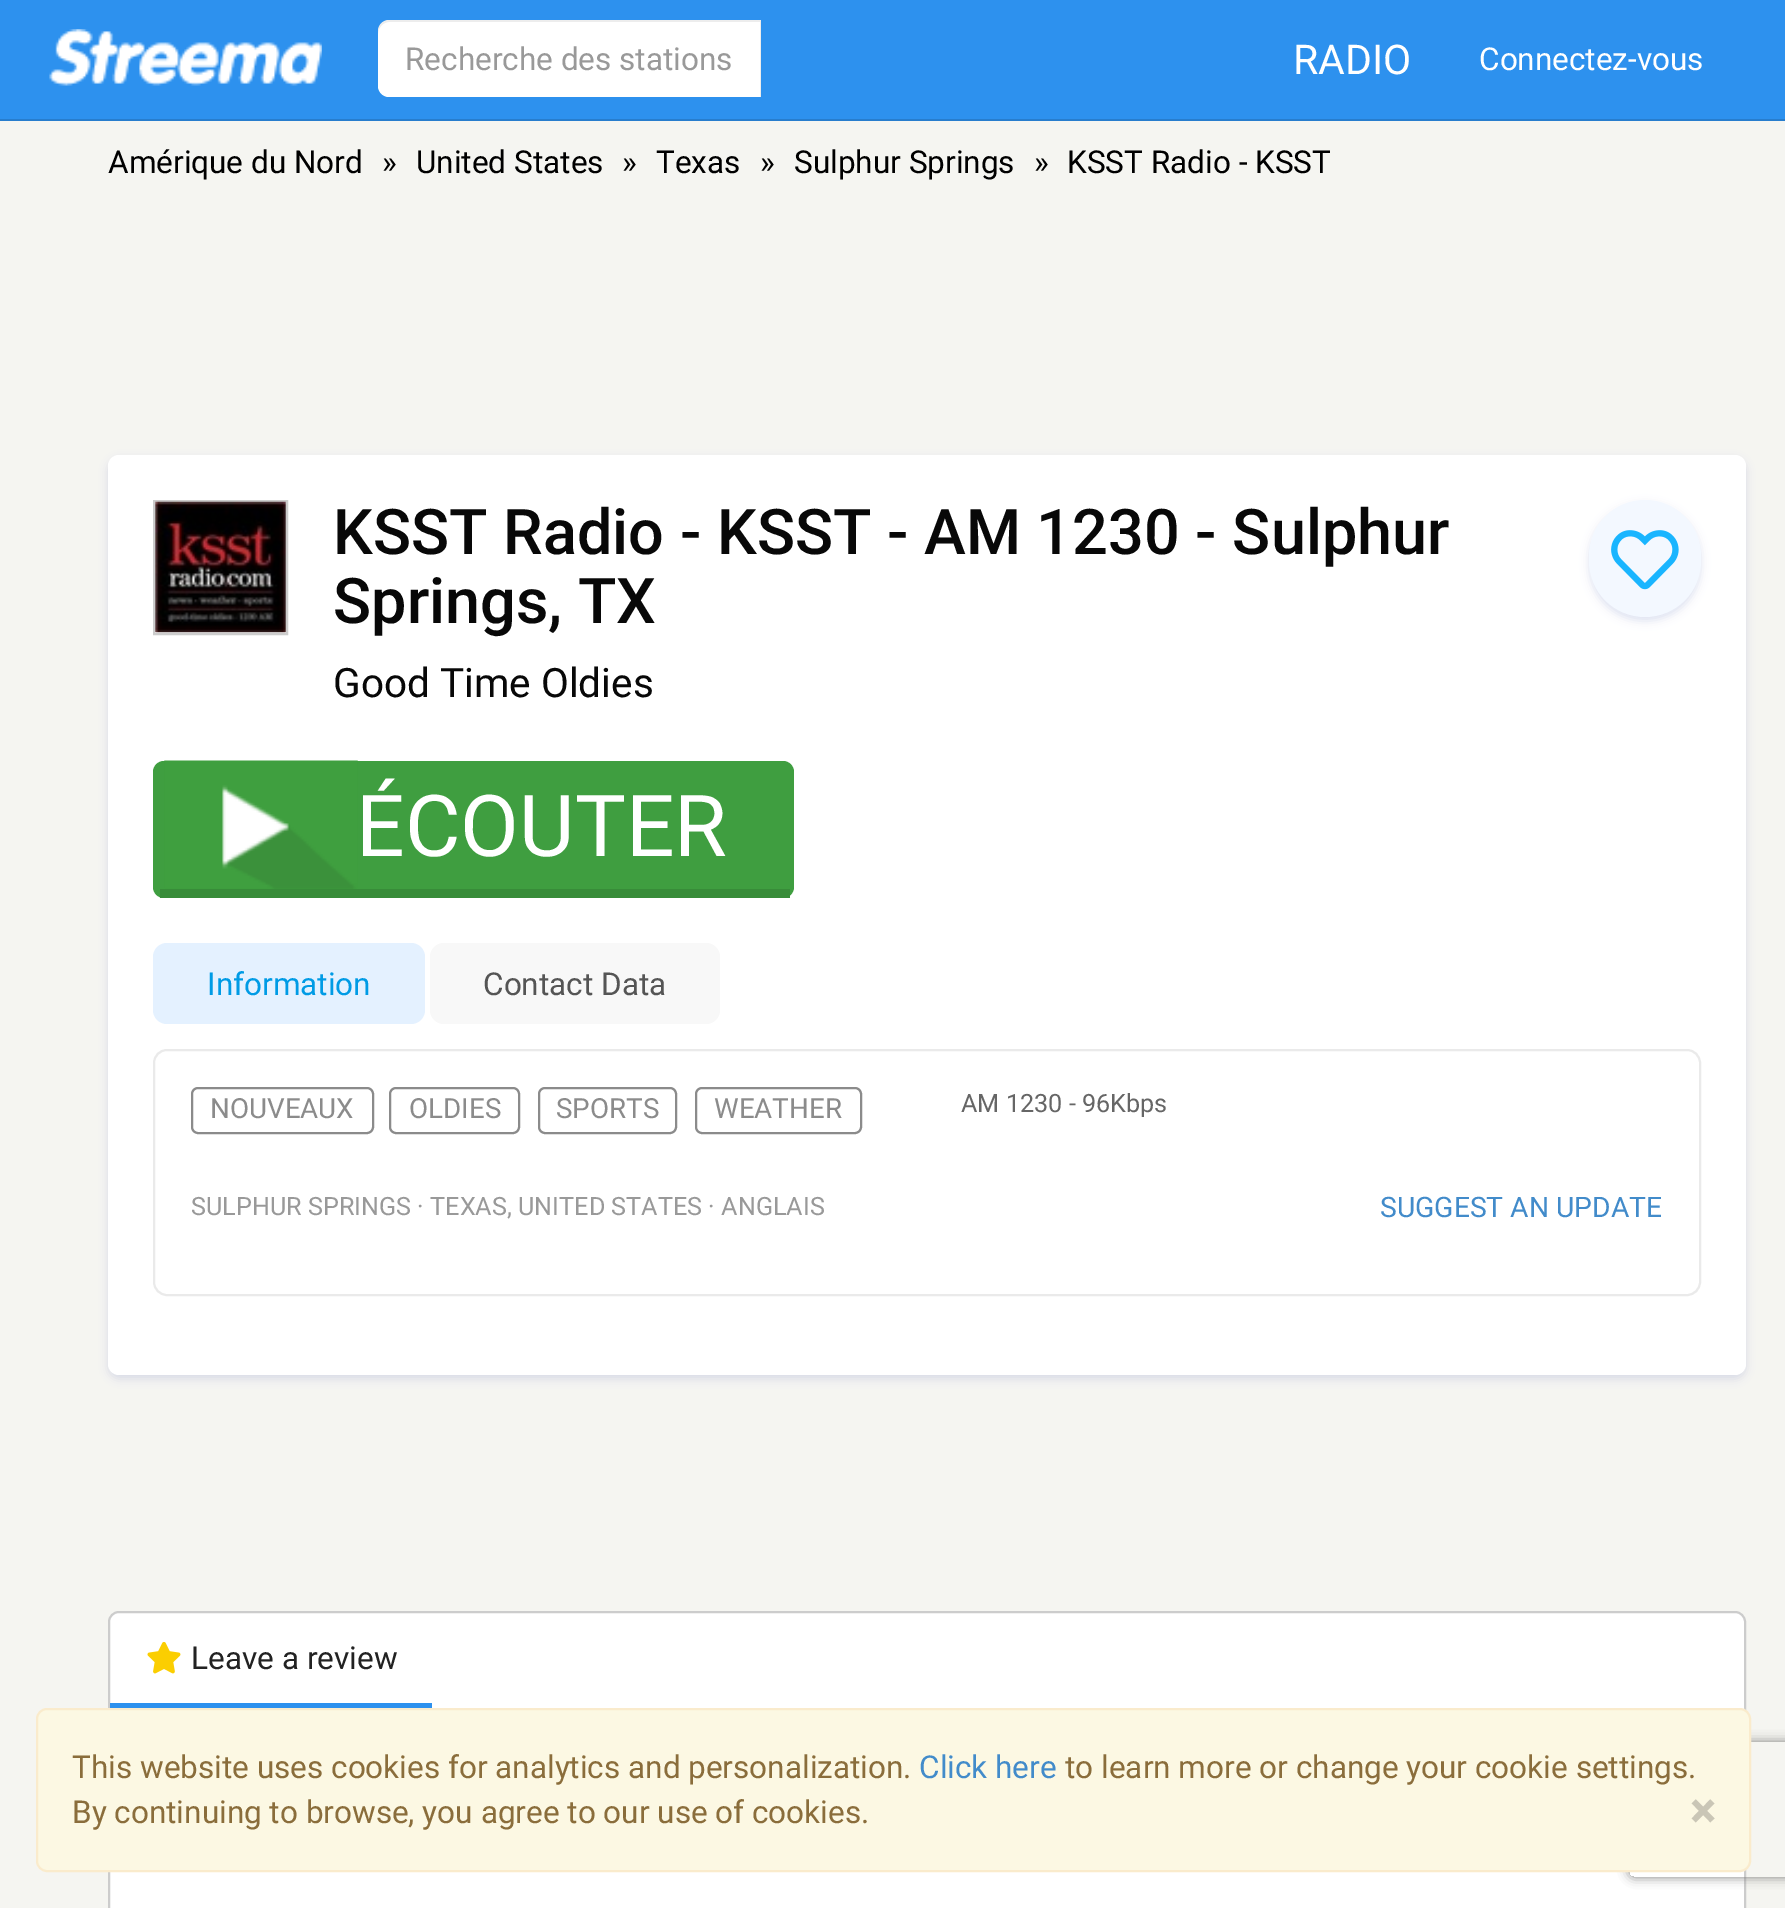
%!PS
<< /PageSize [1785 1908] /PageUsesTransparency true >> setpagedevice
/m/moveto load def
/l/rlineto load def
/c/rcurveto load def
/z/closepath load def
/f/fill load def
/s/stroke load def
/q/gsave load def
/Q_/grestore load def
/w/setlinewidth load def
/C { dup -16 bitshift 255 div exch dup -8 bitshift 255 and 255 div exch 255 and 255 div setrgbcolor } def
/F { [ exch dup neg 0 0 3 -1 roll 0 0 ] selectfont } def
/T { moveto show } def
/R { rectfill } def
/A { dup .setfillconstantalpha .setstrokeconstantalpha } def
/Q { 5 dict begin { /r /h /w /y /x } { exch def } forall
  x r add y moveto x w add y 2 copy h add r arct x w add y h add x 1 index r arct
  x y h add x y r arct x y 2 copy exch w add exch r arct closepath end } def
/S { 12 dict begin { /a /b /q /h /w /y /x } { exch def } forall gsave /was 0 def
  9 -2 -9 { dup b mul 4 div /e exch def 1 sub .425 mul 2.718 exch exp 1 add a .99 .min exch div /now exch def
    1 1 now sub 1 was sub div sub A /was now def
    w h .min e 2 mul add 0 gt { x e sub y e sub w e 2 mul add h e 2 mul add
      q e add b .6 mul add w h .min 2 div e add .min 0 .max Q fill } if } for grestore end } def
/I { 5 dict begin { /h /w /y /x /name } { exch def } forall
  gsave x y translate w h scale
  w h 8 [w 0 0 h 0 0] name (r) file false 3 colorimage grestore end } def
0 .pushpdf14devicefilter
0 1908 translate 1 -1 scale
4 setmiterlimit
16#F5F5F1 C
0 0 1785 1908 R
16#2D91EE C
0 0 1785 119 R
16#277DCD C
0 119 1785 2 R
(1.rgb) 49 29 273 57 I
16#FFFFFF C
389 20 m 372 0 l 0 77 l -372 0 l -6 0 -11 -5 -11 -11 c 0 -55 l 0 -6 5 -11 11 -11 c z f
0.07 A
16#000000 C
389 22 m 371 0 l 0 75 l 1 0 l 0 -77 l -372 0 l -6 0 -11 5 -11 11 c 0 3 l 0 -6 5 -12 11 -12 c z f
/Roboto-Regular 31.5 F
1 A
16#999999 C
(Recherche des stations) 405 70 T
/Roboto-Regular 41 F
16#FFFFFF C
(RADIO) 1293 74 T
/Roboto-Regular 31.5 F
(Connectez-vous) 1479 70 T
16#000000 C
(Amérique du Nord) 108 173 T
(») 382 173 T
(United States) 416 173 T
(») 622 173 T
(Texas) 656 173 T
(») 760 173 T
(Sulphur Springs) 794 173 T
(») 1034 173 T
(KSST Radio - KSST) 1067 173 T
16#7F8BC9 C
108 459 1638 920 11 4.5 .25 S
16#FFFFFF C
108 455 1638 920 11 Q f
16#CCCCCC C
2 w
154 501 133 133 rectstroke
(2.rgb) 155 501 131 132 I
/Roboto-Medium 63 F
16#080808 C
(KSST Radio - KSST - AM 1230 - Sulphur) 333 554 T
(Springs, TX) 333 623 T
/Roboto-Regular 40.5 F
(Good Time Oldies) 333 697 T
16#7F8BC9 C
1589 504 112 117 56 4.5 .25 S
16#F3F8FF C
1589 500 112 117 56 Q f
(3.rgb) 1611 530 68 60 I
16#3F9E40 C
153 761 641 137 11 Q f
16#388C39 C
160 889 630 9 R
(4.rgb) 164 760 194 129 I
/Roboto-Regular 85.5 F
16#FFFFFF C
(ÉCOUTER) 356 856 T
16#E4F1FF C
153 943 272 81 14 Q f
/Roboto-Regular 31.5 F
16#009BE5 C
(Information) 207 995 T
16#F8F8F8 C
430 943 290 81 14 Q f
16#555555 C
(Contact Data) 483 995 T
16#EAEAEA C
154 1050 1546 245 13 Q s
16#8B8B8B C
192 1088 181 45 6 Q s
/Roboto-Regular 27.75 F
(NOUVEAUX) 210 1118 T
390 1088 129 45 6 Q s
(OLDIES) 409 1118 T
539 1088 137 45 6 Q s
(SPORTS) 556 1118 T
696 1088 165 45 6 Q s
(WEATHER) 714 1118 T
/Roboto-Regular 25.2 F
16#666666 C
(AM 1230 - 96Kbps) 961 1112 T
16#999999 C
(SULPHUR SPRINGS · TEXAS, UNITED STATES · ANGLAIS) 191 1215 T
/Roboto-Regular 28.25 F
16#428BCA C
(SUGGEST AN UPDATE) 1380 1217 T
16#FFFFFF C
109 1612 1636 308 10 Q q f Q_
16#CCCCCC C
s
16#2D91EE C
110 1703 322 5 R
(5.rgb) 147 1642 34 32 I
/Roboto-Regular 31.5 F
16#222222 C
(Leave a review) 191 1669 T
q
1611 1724 m 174 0 l 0 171 l -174 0 l z 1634 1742 m 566 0 l 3 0 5 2 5 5 c 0 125 l 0 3 -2 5 -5 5 c -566 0 l -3 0 -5 -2 -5 -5 c 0 -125 l 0 -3 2 -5 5 -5 c z eoclip newpath
16#808080 C
1629 1742 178 135 5 5.5 1 S
Q_
16#FCF8E3 C
37 1709 1713 162 10 Q q f Q_
16#FAEBCC C
s
16#8A6D3B C
(This website uses cookies for analytics and personalization.) 72 1778 T
16#428BCA C
(Click here) 919 1778 T
16#8A6D3B C
(to learn more or change your cookie settings.) 1065 1778 T
(By continuing to browse, you agree to our use of cookies.) 72 1823 T
/Roboto-Bold 47 F
16#CAC6B6 C
(×) 1690 1827 T
.poppdf14devicefilter showpage
